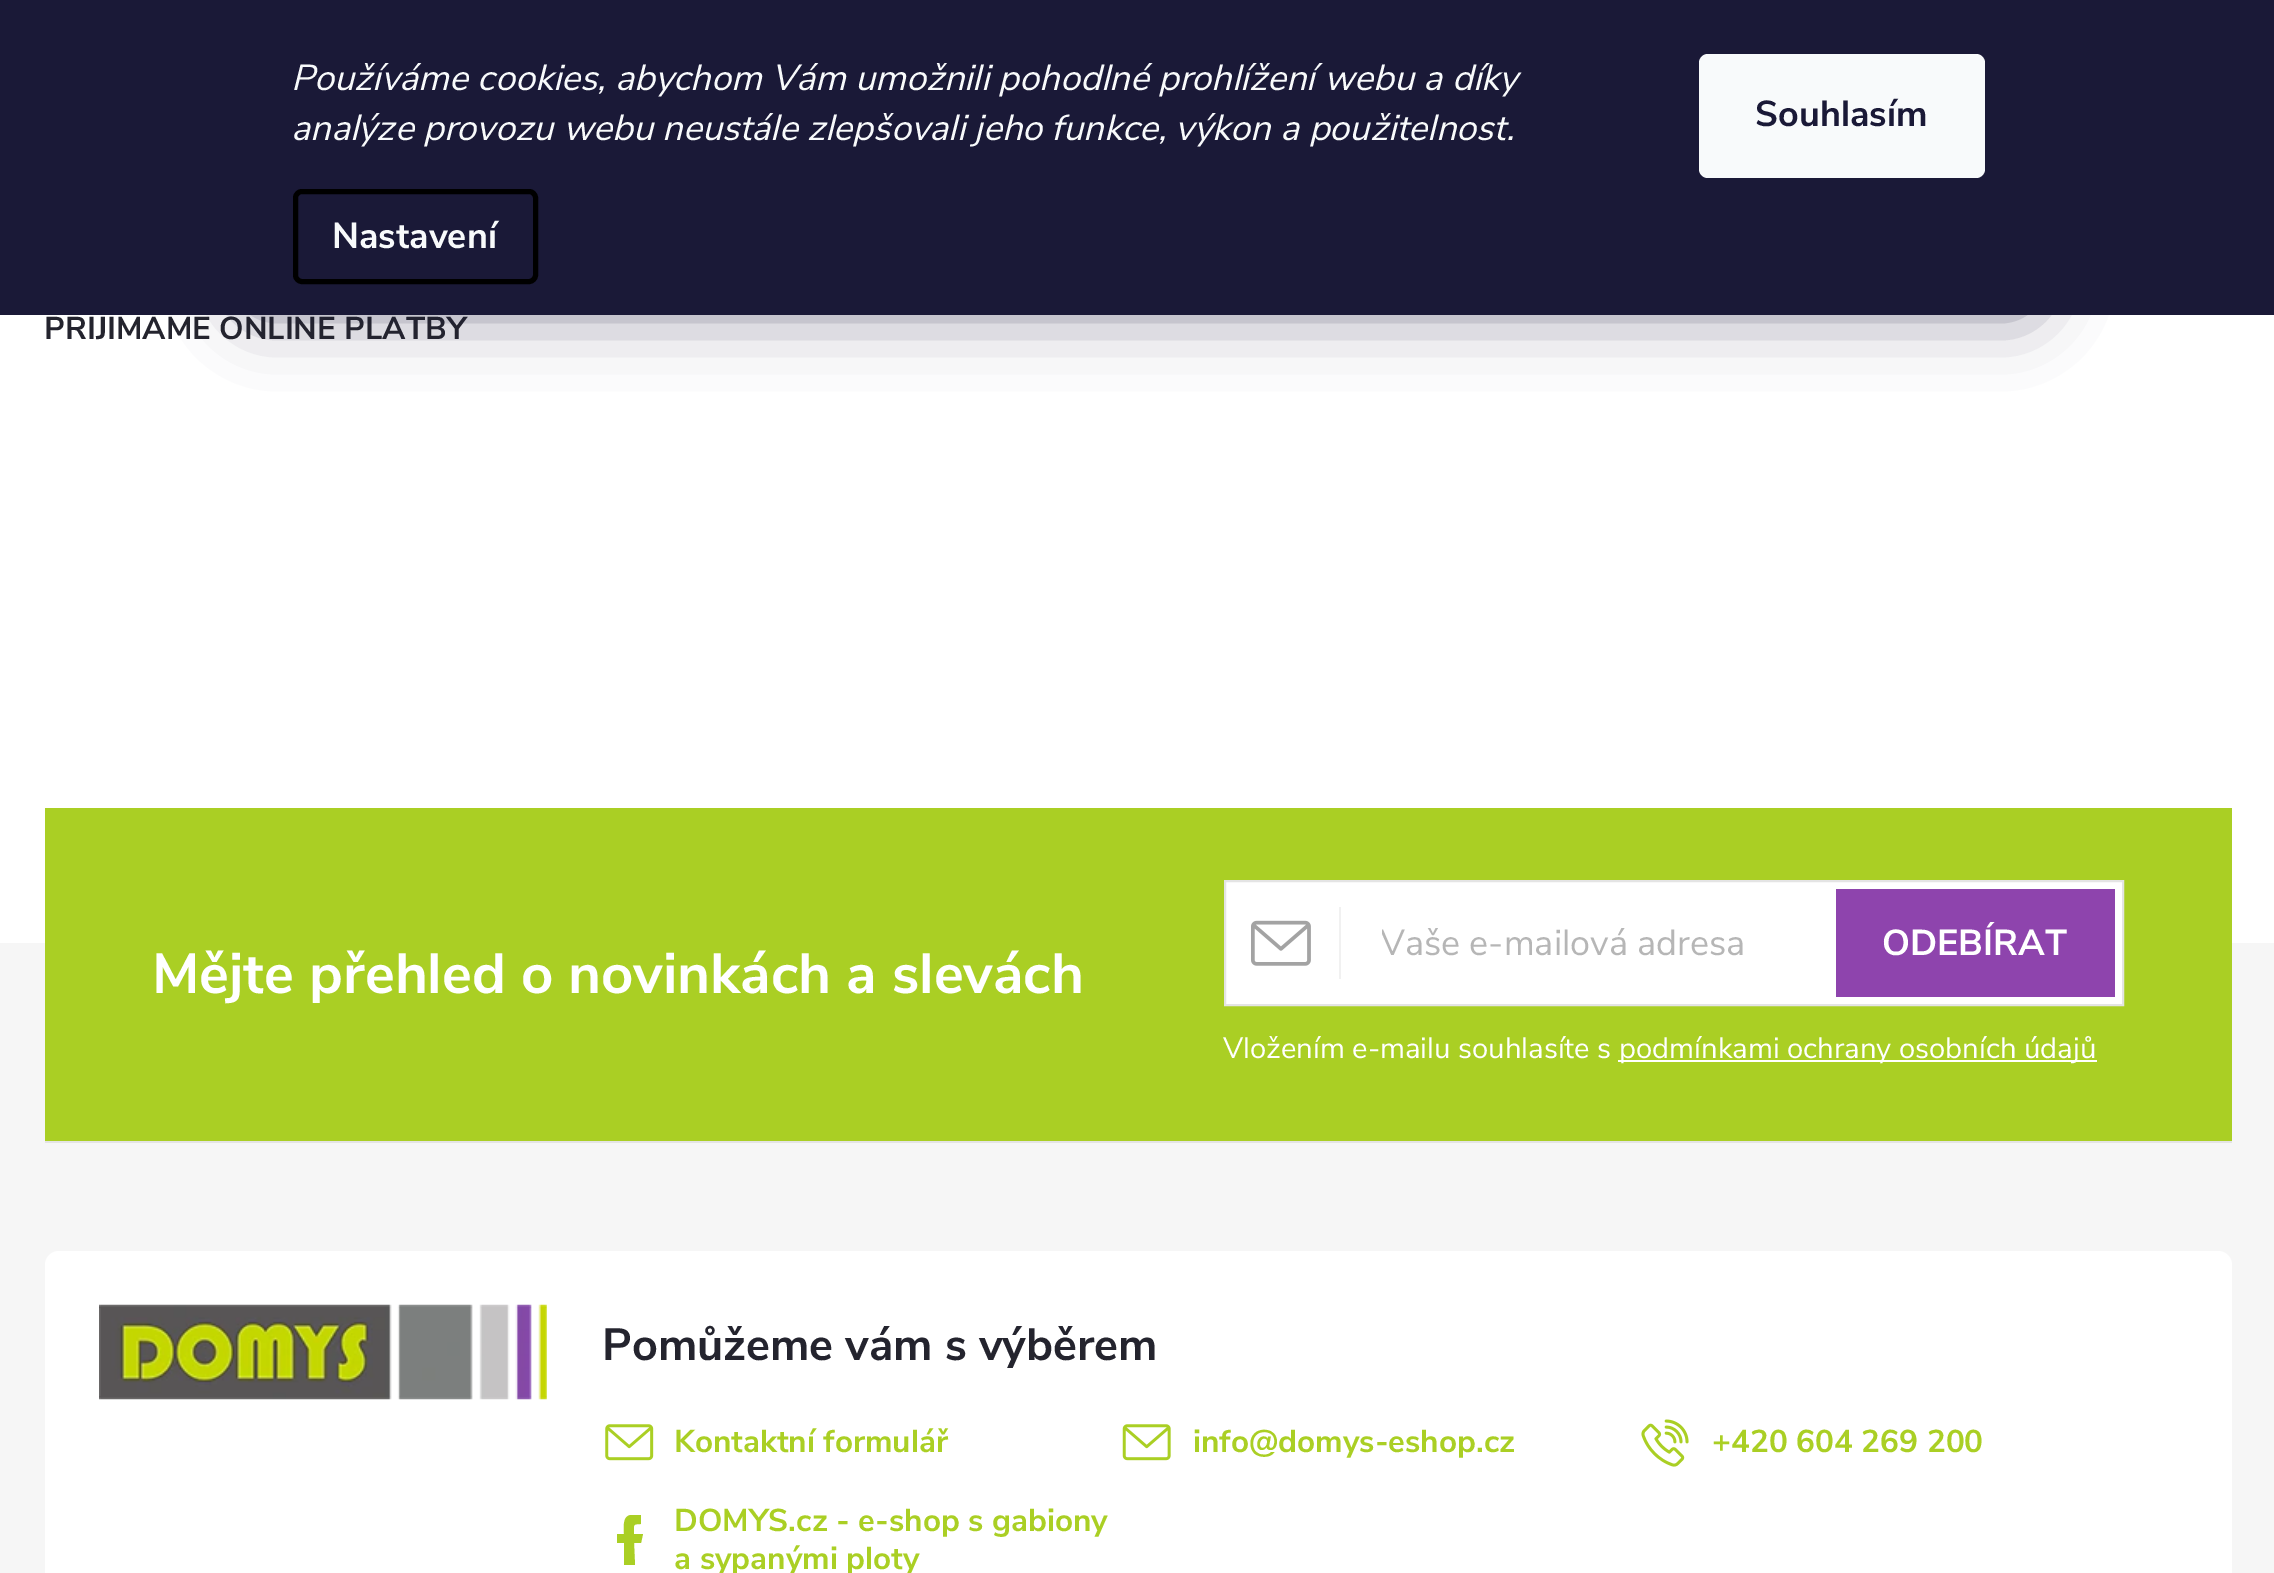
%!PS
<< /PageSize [2274 1573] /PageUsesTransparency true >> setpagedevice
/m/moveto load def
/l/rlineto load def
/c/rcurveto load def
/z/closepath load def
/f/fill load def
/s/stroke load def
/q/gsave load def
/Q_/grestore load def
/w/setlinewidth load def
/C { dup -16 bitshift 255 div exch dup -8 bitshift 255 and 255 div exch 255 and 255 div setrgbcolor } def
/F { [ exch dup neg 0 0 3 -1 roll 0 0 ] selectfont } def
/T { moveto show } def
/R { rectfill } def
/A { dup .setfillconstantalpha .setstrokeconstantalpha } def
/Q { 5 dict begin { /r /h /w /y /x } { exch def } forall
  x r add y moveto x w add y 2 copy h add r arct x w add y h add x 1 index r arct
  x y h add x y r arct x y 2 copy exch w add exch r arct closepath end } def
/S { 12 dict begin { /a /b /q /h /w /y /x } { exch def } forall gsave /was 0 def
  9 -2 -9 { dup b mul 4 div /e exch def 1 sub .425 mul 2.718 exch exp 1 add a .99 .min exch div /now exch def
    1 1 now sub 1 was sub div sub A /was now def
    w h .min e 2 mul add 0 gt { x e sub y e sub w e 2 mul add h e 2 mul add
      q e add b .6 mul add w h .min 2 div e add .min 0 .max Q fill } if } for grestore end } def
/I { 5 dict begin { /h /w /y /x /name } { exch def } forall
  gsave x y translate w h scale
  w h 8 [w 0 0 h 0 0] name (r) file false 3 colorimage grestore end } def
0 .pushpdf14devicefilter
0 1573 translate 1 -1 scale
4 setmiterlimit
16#FFFFFF C
0 0 2274 1573 R
/NunitoSans-Bold 31.5 F
16#24242E C
(PŘIJÍMÁME ONLINE PLATBY) 44 339 T
16#1A1937 C
0 0 2274 315 R
q
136 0 m 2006 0 l 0 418 l -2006 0 l z 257 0 m 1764 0 l 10 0 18 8 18 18 c 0 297 l -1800 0 l 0 -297 l 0 -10 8 -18 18 -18 c z eoclip newpath
16#1B1939 C
239 0 1800 315 18 34 .5 S
Q_
/NunitoSans-Italic 36 F
16#F8FAFB C
(Používáme cookies, abychom Vám umožnili pohodlné prohlížení webu a díky) 291 90 T
(analýze provozu webu neustále zlepšovali jeho funkce, výkon a použitelnost.) 291 140 T
16#000000 C
5 w
295.5 191.5 240 90 6.5 Q s
/NunitoSans-Bold 36 F
16#F8FAFB C
(Nastavení) 332 248 T
1699 54 286 124 9 Q f
16#1A1937 C
(Souhlasím) 1755 126 T
16#F6F6F6 C
0 943 2274 630 R
16#AACF24 C
45 808 2187 333 R
/NunitoSans-Bold 56.25 F
16#FFFFFF C
(Mějte přehled o novinkách a slevách) 152 993 T
1225 881 m 898 0 l 0 124 l -898 0 l z q f Q_
16#E4E4E4 C
2 w
s
16#F1F1F1 C
1339 907 2 72 R
(1.rgb) 1251 920 60 46 I
q
1382 918 470 50 rectclip
/NunitoSans-Regular 36 F
16#B6B6B6 C
(Vaše e-mailová adresa) 1380 955 T
Q_
16#8E44AD C
1836 889 279 108 R
/NunitoSans-Bold 36 F
16#FFFFFF C
(ODEBÍRAT) 1882 955 T
/NunitoSans-Regular 29.25 F
(Vložením e-mailu souhlasíte s) 1223 1058 T
1618 1060 479 2 R
(podmínkami ochrany osobních údajů) 1619 1058 T
16#E4E4E4 C
45 1141 2187 2 R
16#FFFFFF C
45 1251 2187 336 14 Q f
(2.rgb) 99 1304 448 96 I
/NunitoSans-Bold 45 F
16#24242E C
(Pomůžeme vám s výběrem) 602 1360 T
(3.rgb) 605 1424 49 37 I
/NunitoSans-Bold 31.5 F
16#AACF24 C
(Kontaktní formulář) 674 1452 T
(4.rgb) 1122 1424 49 37 I
(info@domys-eshop.cz) 1193 1452 T
(5.rgb) 1641 1419 48 48 I
(+420 604 269 200) 1712 1452 T
624 1543 m 0 22 l 11 0 l -1 -22 l 7 0 l 2 -9 l -9 0 l 0 -9 -2 -10 7 -10 c 0 -9 l -10 0 l -9 1 -7 13 -7 19 c -7 0 l 0 9 l z f
(DOMYS.cz - e-shop s gabiony) 674 1531 T
(a sypanými ploty) 674 1569 T
.poppdf14devicefilter showpage
